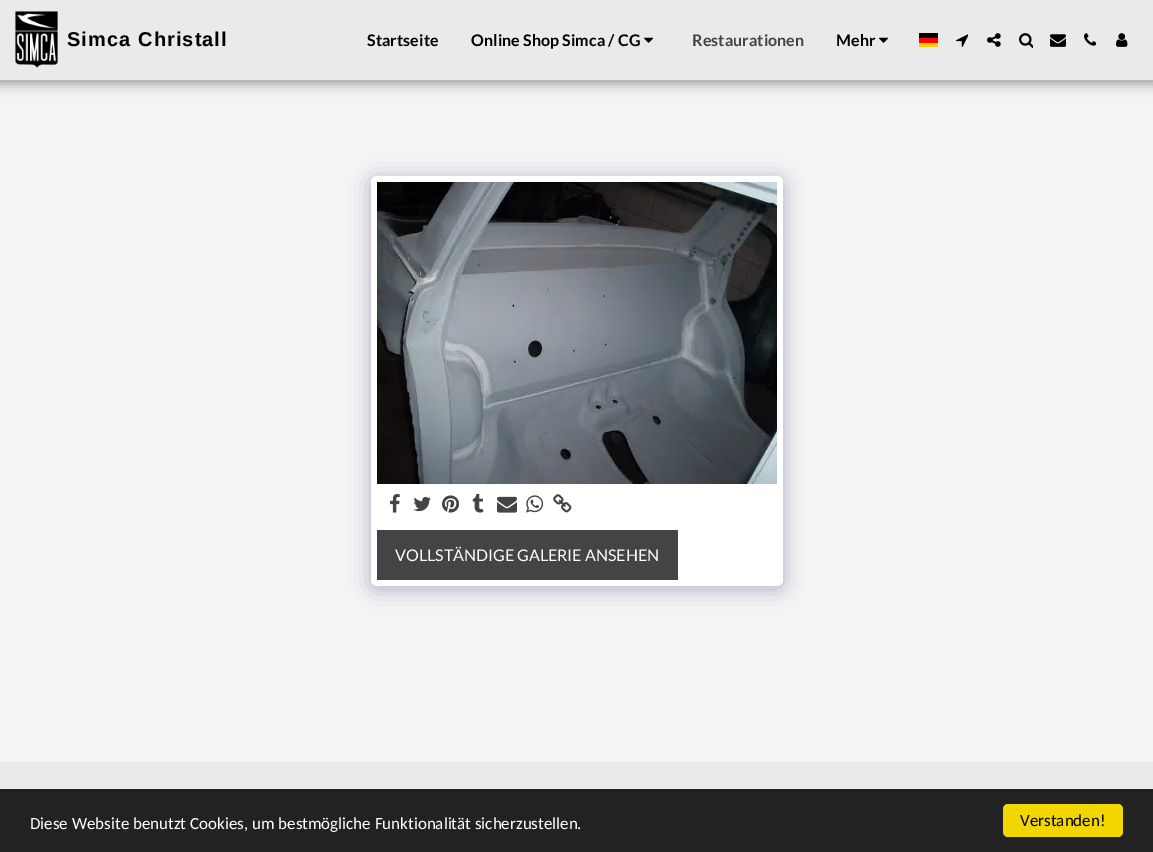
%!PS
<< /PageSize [1153 852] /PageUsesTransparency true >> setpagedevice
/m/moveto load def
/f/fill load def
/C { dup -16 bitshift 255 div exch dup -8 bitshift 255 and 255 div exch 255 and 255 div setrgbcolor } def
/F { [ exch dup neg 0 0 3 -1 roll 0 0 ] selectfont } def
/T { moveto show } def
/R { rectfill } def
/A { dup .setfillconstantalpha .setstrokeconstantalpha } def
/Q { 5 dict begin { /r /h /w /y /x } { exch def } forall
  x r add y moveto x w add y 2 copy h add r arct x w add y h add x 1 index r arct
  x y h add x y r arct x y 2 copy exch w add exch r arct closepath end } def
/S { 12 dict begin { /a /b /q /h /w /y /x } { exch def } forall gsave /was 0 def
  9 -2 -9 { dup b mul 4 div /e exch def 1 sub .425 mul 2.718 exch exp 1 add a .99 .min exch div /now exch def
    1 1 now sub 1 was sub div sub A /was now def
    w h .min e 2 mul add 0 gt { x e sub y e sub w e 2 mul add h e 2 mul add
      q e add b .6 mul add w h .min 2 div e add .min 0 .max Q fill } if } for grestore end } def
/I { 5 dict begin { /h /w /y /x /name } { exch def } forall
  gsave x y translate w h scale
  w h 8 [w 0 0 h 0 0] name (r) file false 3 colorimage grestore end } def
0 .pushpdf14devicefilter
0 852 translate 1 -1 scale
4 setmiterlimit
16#F4F4F4 C
0 0 1153 852 R
16#000000 C
-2 0 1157 84 0 6 .35 S
16#EAEAEA C
0 0 1153 80 R
(1.rgb) 15 11 43 57 I
/LiberationSans-Bold 20 F
16#000000 C
67 46 m 1 0 32 1 0 (Simca Christall) awidthshow
/Lato-Bold 16 F
367 46 m .1 0 (Startseite) ashow
471 46 m .1 0 (Online Shop Simca / CG) ashow
(2.rgb) 644 37 9 6 I
16#444444 C
692 46 m .1 0 (Restaurationen) ashow
16#000000 C
836 46 m .1 0 (Mehr) ashow
(3.rgb) 879 37 10 6 I
16#FFCE00 C
919 43 19 4 R
16#000001 C
919 33 19 5 R
16#FF0000 C
919 38 19 5 R
(4.rgb) 956 34 12 13 I
(5.rgb) 987 33 14 14 I
(6.rgb) 1019 33 14 15 I
(7.rgb) 1050 34 16 13 I
(8.rgb) 1084 33 12 13 I
(9.rgb) 1116 33 12 14 I
16#4D3F7A C
371 179 412 410 6 10 .4 S
16#FFFFFF C
371 176 412 410 6 Q f
(10.rgb) 377 182 400 302 I
(11.rgb) 390 494 10 19 I
(12.rgb) 413 496 18 16 I
(13.rgb) 442 495 17 18 I
(14.rgb) 472 494 12 19 I
(15.rgb) 497 496 20 17 I
(16.rgb) 526 495 17 18 I
(17.rgb) 553 494 19 19 I
16#444444 C
377 530 301 50 R
/Lato-Regular 16 F
16#FFFFFF C
(VOLLSTÄNDIGE GALERIE ANSEHEN) 395 561 T
16#EAEAEA C
0 762 1153 27 R
16#222222 C
0 789 1153 63 R
/Carlito-Regular 17 F
16#FFFFFF C
(Diese Website benutzt Cookies, um bestmögliche Funktionalität sicherzustellen.) 30 829 T
16#F1D600 C
1003 804 120 33 5 Q f
16#000000 C
(Verstanden!) 1020 826 T
.poppdf14devicefilter showpage
